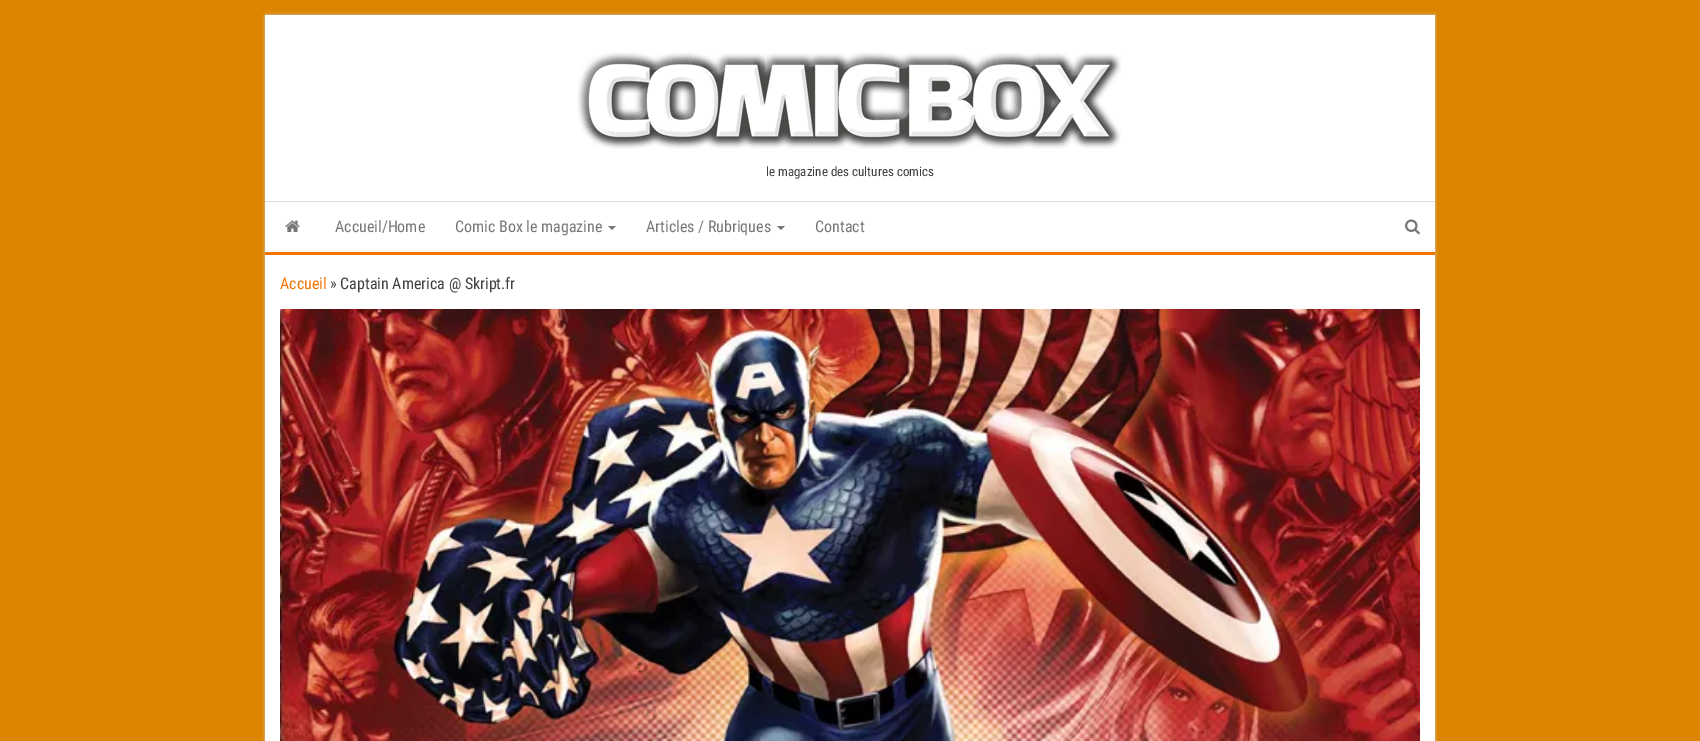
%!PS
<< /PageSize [1700 741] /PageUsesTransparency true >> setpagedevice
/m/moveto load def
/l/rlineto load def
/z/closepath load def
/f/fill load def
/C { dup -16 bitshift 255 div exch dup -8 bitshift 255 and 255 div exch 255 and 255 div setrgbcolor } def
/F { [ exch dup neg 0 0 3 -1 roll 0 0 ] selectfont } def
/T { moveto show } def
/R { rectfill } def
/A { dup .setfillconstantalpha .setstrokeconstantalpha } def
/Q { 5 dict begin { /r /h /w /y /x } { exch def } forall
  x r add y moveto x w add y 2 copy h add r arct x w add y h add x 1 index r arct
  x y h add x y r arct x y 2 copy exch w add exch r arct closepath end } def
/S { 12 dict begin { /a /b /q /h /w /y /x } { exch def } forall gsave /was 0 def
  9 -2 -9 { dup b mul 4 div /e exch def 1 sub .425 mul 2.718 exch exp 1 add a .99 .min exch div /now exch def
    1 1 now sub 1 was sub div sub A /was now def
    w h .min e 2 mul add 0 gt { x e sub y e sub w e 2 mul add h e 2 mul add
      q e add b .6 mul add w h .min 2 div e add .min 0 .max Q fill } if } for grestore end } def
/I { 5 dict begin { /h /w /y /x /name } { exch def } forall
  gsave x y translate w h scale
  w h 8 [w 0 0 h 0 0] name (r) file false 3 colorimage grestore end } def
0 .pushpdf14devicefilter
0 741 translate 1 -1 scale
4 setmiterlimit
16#DD8500 C
0 0 1700 741 R
16#CACACA C
265 15 1170 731 0 1.5 1 S
16#FFFFFF C
265 15 1170 186 R
(1.rgb) 577 52 544 97 I
/RobotoCondensed-Regular 13 F
16#404040 C
(le magazine des cultures comics) 766 176 T
16#FFFFFF C
265 202 1170 50 R
16#DDDDDD C
265 201 1170 1 R
16#F27300 C
265 252 1170 3 R
(2.rgb) 285 220 15 12 I
/RobotoCondensed-Regular 16 F
16#777777 C
(Accueil/Home) 335 232 T
(Comic Box le magazine) 455 232 T
608 226 m 8 0 l -4 4 l z f
(Articles / Rubriques) 646 232 T
777 226 m 8 0 l -4 4 l z f
(Contact) 815 232 T
(3.rgb) 1405 219 15 16 I
16#FFFFFF C
265 255 1170 486 R
16#F27300 C
(Accueil) 280 289 T
16#404040 C
(» Captain America @ Skript.fr) 330 289 T
(4.rgb) 280 309 1140 432 I
.poppdf14devicefilter showpage
